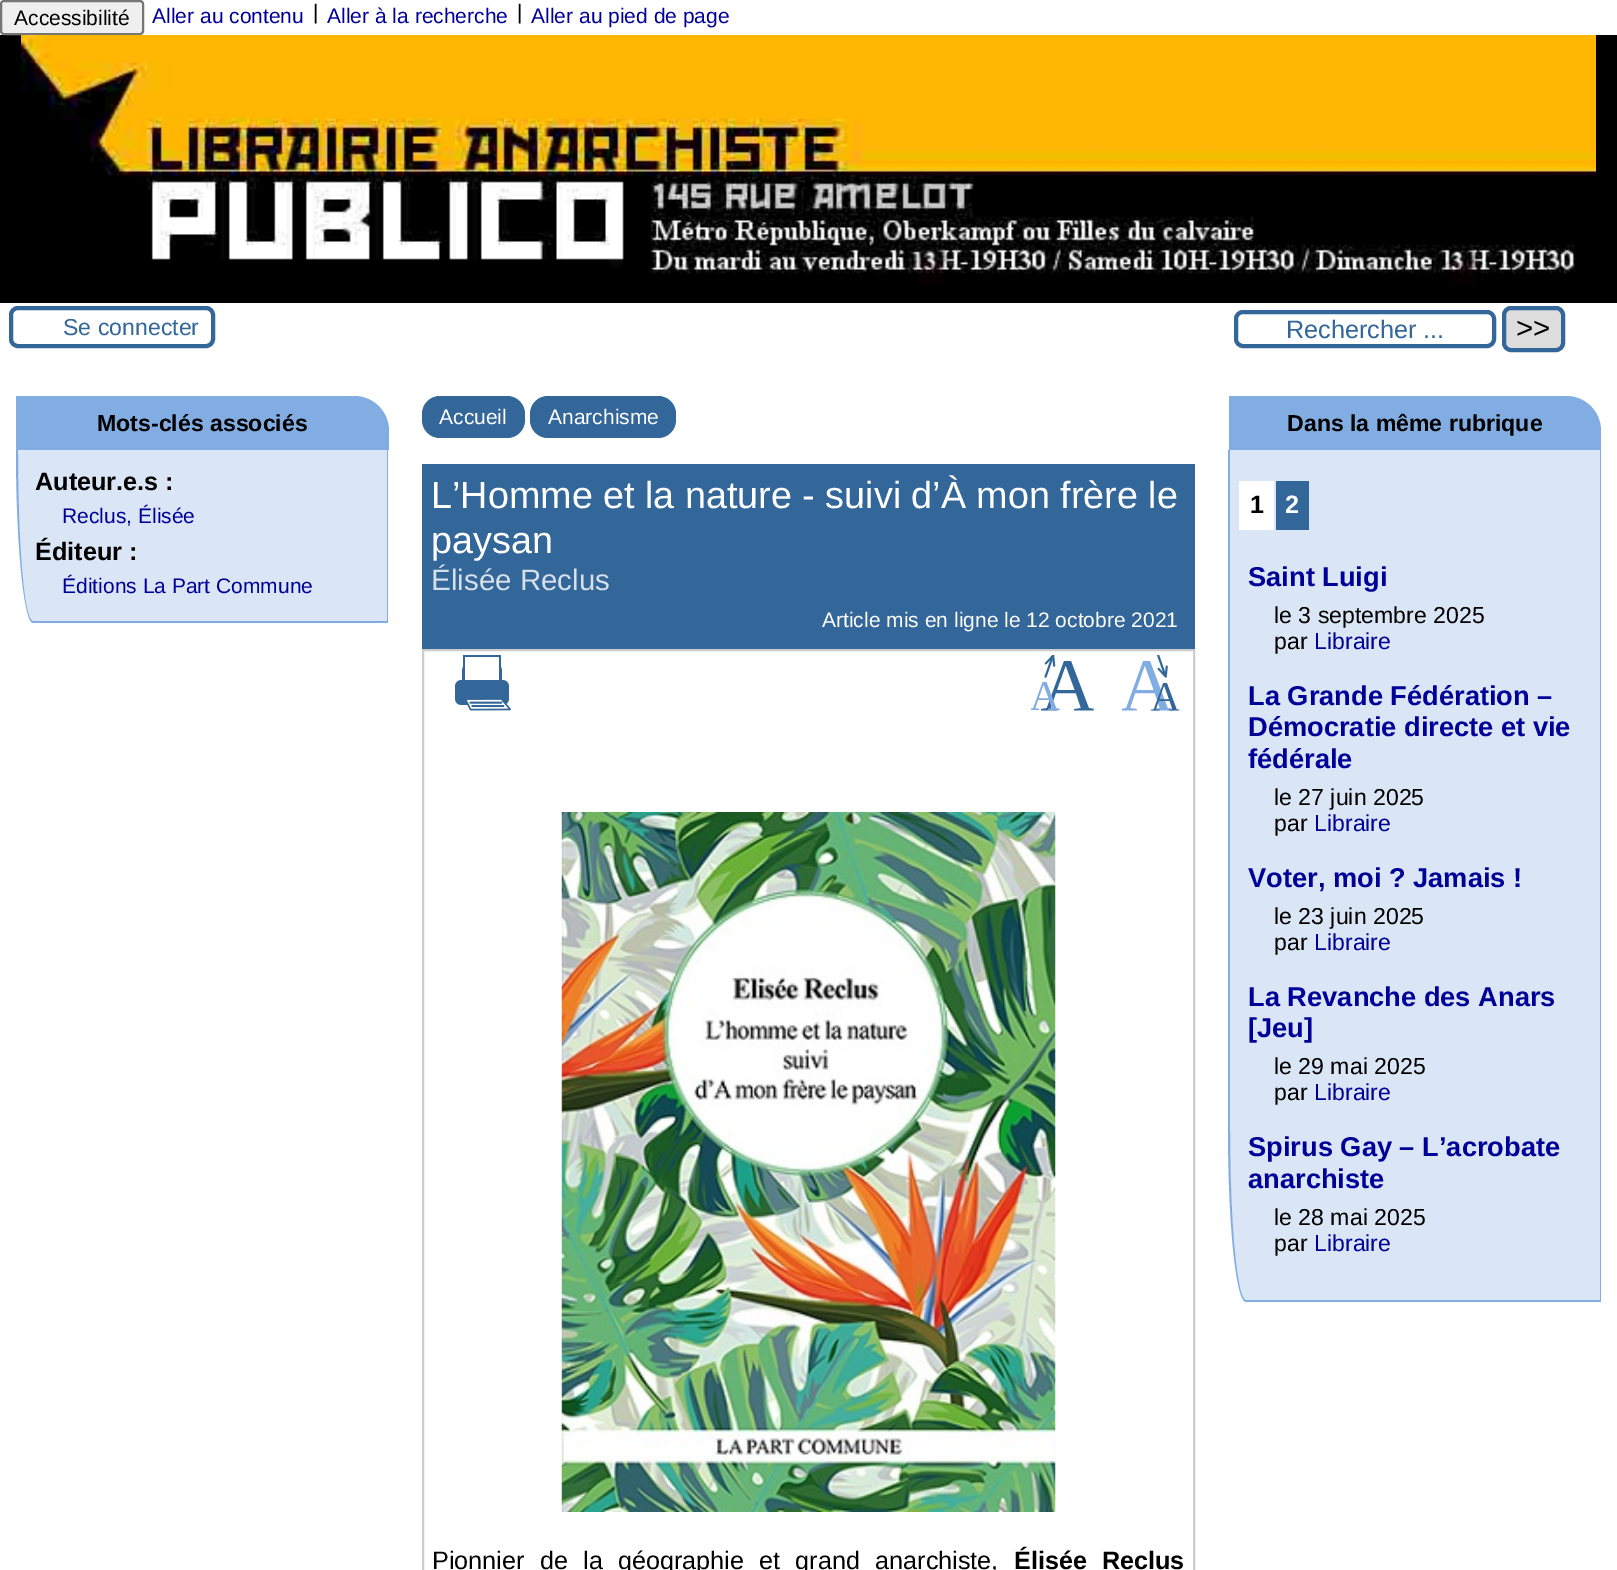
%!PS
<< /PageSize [1617 1570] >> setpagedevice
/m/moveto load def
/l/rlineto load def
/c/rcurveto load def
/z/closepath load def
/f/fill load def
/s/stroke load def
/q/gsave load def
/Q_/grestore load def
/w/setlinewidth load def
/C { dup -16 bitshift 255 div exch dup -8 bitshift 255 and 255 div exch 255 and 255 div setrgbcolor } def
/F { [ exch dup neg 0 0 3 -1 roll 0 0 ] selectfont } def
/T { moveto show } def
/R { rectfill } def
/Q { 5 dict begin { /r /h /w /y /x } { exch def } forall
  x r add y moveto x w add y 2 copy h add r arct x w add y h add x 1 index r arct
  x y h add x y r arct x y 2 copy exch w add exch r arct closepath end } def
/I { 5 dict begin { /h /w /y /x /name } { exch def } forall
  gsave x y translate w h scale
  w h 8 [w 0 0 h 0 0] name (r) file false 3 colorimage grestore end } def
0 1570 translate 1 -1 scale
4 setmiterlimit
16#FFFFFF C
0 0 1617 1570 R
16#000000 C
0 35 1617 268 R
16#EFEFEF C
1 1 142 33 3 Q q f Q_
16#767676 C
2 w
s
/LiberationSans-Regular 21 F
16#000000 C
(Accessibilité) 14 25 T
16#000099 C
(Aller au contenu) 152 23 T
16#000000 C
(|) 313 19 T
16#000099 C
(Aller à la recherche) 327 23 T
16#000000 C
(|) 517 19 T
16#000099 C
(Aller au pied de page) 531 23 T
(1.rgb) 21 35 1575 250 I
16#336699 C
4 w
11 308 202 38 7 Q s
/LiberationSans-Regular 23.1 F
(Se connecter) 63 335 T
1236 312 258 34 7 Q s
/LiberationSans-Regular 25.2 F
(Rechercher ...) 1286 338 T
16#DDDDDD C
1504 308 59 42 7 Q q f Q_
16#336699 C
s
/LiberationSans-Regular 29.5 F
16#000000 C
(>>) 1516 338 T
16#82ADE2 C
16 396 m 338 0 l 19.5 0 35 15.5 35 35 c 0 19 l -373 0 l z f
/LiberationSans-Bold 23.1 F
16#000000 C
(Mots-clés associés) 97 431 T
16#DAE6F6 C
18 450 m 369 0 l 0 171 l -354 0 l -9 0 -15 -77 -15 -171 c z f
16#82ADE2 C
16 450 m 372 0 l 0 173 l -355 0 l -9 0 -17 -78 -17 -173 c z 18 450 m 369 0 l 0 171 l -354 0 l -9 0 -15 -77 -15 -171 c z eofill
/LiberationSans-Bold 25.2 F
16#000000 C
(Auteur.e.s :) 35 490 T
/LiberationSans-Regular 21 F
16#000099 C
(Reclus, Élisée) 62 523 T
/LiberationSans-Bold 25.2 F
16#000000 C
(Éditeur :) 35 560 T
/LiberationSans-Regular 21 F
16#000099 C
(Éditions La Part Commune) 62 593 T
16#336699 C
422 396 103 42 18 Q f
16#FFFFFF C
(Accueil) 439 424 T
16#336699 C
530 396 146 42 18 Q f
16#FFFFFF C
(Anarchisme) 548 424 T
16#336699 C
422 464 773 185 R
/LiberationSans-Regular 37.75 F
16#FFFFFF C
(L’Homme et la nature - suivi d’À mon frère le) 431 508 T
(paysan) 431 553 T
/LiberationSans-Regular 29.5 F
16#D6E0EB C
(Élisée Reclus) 431 590 T
/LiberationSans-Regular 21 F
16#FFFFFF C
(Article mis en ligne le 12 octobre 2021) 822 627 T
16#CCCCCC C
2 w
423 650 771 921 rectstroke
(2.rgb) 455 655 56 56 I
(3.rgb) 1031 655 63 56 I
(4.rgb) 1122 655 58 56 I
(5.rgb) 561 812 495 700 I
/LiberationSans-Regular 25.2 F
16#000000 C
432 1569 m 8.25 0 32 (Pionnier de la géographie et grand anarchiste,) widthshow
/LiberationSans-Bold 25.2 F
1014 1569 m 8 0 32 (Élisée Reclus) widthshow
16#82ADE2 C
1229 396 m 337 0 l 19.5 0 35 15.5 35 35 c 0 19 l -372 0 l z f
/LiberationSans-Bold 23.1 F
16#000000 C
(Dans la même rubrique) 1287 431 T
16#DAE6F6 C
1230 450 m 370 0 l 0 850 l -354 0 l -9 0 -16 -77 -16 -173 c z f
16#82ADE2 C
1228 450 m 373 0 l 0 852 l -355 0 l -10 0 -18 -78 -18 -175 c z 1230 450 m 370 0 l 0 850 l -354 0 l -9 0 -16 -77 -16 -173 c z eofill
16#FFFFFF C
1239 481 35 49 R
/LiberationSans-Bold 25.2 F
16#000000 C
(1) 1250 513 T
16#336699 C
1276 481 33 49 R
16#FFFFFF C
(2) 1285 513 T
/LiberationSans-Bold 27.25 F
16#000099 C
(Saint Luigi) 1248 586 T
/LiberationSans-Regular 23.1 F
16#000000 C
(le 3 septembre 2025) 1274 623 T
(par) 1274 649 T
16#000099 C
(Libraire) 1314 649 T
/LiberationSans-Bold 27.25 F
(La Grande Fédération –) 1248 705 T
(Démocratie directe et vie) 1248 736 T
(fédérale) 1248 768 T
/LiberationSans-Regular 23.1 F
16#000000 C
(le 27 juin 2025) 1274 805 T
(par) 1274 831 T
16#000099 C
(Libraire) 1314 831 T
/LiberationSans-Bold 27.25 F
(Voter, moi ? Jamais !) 1248 887 T
/LiberationSans-Regular 23.1 F
16#000000 C
(le 23 juin 2025) 1274 924 T
(par) 1274 950 T
16#000099 C
(Libraire) 1314 950 T
/LiberationSans-Bold 27.25 F
(La Revanche des Anars) 1248 1006 T
([Jeu]) 1248 1037 T
/LiberationSans-Regular 23.1 F
16#000000 C
(le 29 mai 2025) 1274 1074 T
(par) 1274 1100 T
16#000099 C
(Libraire) 1314 1100 T
/LiberationSans-Bold 27.25 F
(Spirus Gay – L’acrobate) 1248 1156 T
(anarchiste) 1248 1188 T
/LiberationSans-Regular 23.1 F
16#000000 C
(le 28 mai 2025) 1274 1225 T
(par) 1274 1251 T
16#000099 C
(Libraire) 1314 1251 T
showpage
